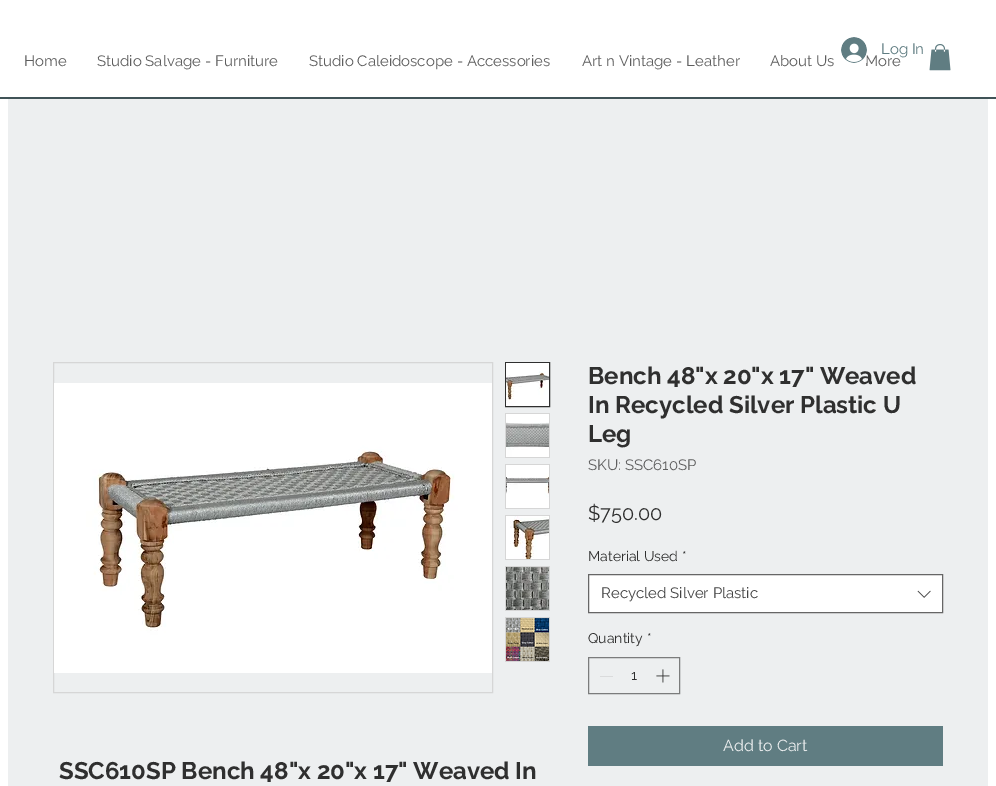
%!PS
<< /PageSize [996 786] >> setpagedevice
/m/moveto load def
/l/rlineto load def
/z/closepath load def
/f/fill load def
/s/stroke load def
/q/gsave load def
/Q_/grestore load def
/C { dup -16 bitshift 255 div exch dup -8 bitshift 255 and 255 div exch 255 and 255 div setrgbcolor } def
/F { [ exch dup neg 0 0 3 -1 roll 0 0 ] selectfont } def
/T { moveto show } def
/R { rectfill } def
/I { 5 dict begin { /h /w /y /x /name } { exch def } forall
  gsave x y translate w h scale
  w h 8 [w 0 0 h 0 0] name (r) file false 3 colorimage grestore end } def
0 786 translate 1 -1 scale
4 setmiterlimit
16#FFFFFF C
0 0 996 786 R
/Raleway-Regular 15 F
16#5E5E5E C
(Home) 24 66 T
(Studio Salvage - Furniture) 97 66 T
(Studio Caleidoscope - Accessories) 309 66 T
(Art n Vintage - Leather) 582 66 T
(About Us) 770 66 T
(More) 865 66 T
(1.rgb) 841 37 26 26 I
16#607D82 C
(Log In) 881 54 T
(2.rgb) 929 44 22 27 I
16#405357 C
0 97 996 2 R
16#EDEFF0 C
8 99 980 687 R
/Raleway-Bold 24 F
16#2F2F2F C
(Bench 48"x 20"x 17" Weaved) 588 384 T
(In Recycled Silver Plastic U) 588 413 T
(Leg) 588 442 T
/Raleway-Regular 15 F
16#5E5E5E C
(SKU: SSC610SP) 588 470 T
/Raleway-Regular 20 F
16#2F2F2F C
($750.00) 588 520 T
/Raleway-Regular 14 F
(Material Used) 588 561 T
(*) 682 561 T
16#FFFFFF C
588.5 574.5 m 354 0 l 0 38 l -354 0 l z q f Q_
16#666666 C
s
/Raleway-Regular 15 F
16#444444 C
(Recycled Silver Plastic) 601 598 T
(3.rgb) 917 590 14 8 I
/Raleway-Regular 14 F
16#2F2F2F C
(Quantity) 588 643 T
(*) 647 643 T
16#7B7C7C C
588.5 657.5 91 36 rectstroke
16#DADBDC C
600 676 13 1 R
16#2F2F2F C
(1) 631 680 T
(4.rgb) 656 669 14 14 I
16#607D82 C
588 726 355 40 R
/Raleway-Regular 16 F
16#EDEFF0 C
(Add to Cart) 723 751 T
16#D6D6D6 C
53.5 362.5 439 330 rectstroke
(5.rgb) 54 383 438 290 I
16#2F2F2F C
505.5 362.5 44 44 rectstroke
(6.rgb) 506 363 43 43 I
16#D6D6D6 C
505 413 45 45 R
(7.rgb) 506 414 43 43 I
505 464 45 45 R
(8.rgb) 506 465 43 43 I
505 515 45 45 R
(9.rgb) 506 516 43 43 I
505 566 45 45 R
(10.rgb) 506 567 43 43 I
505 617 45 45 R
(11.rgb) 506 618 43 43 I
/Raleway-Bold 24 F
16#2F2F2F C
(SSC610SP Bench 48"x 20"x 17" Weaved In) 59 779 T
showpage
